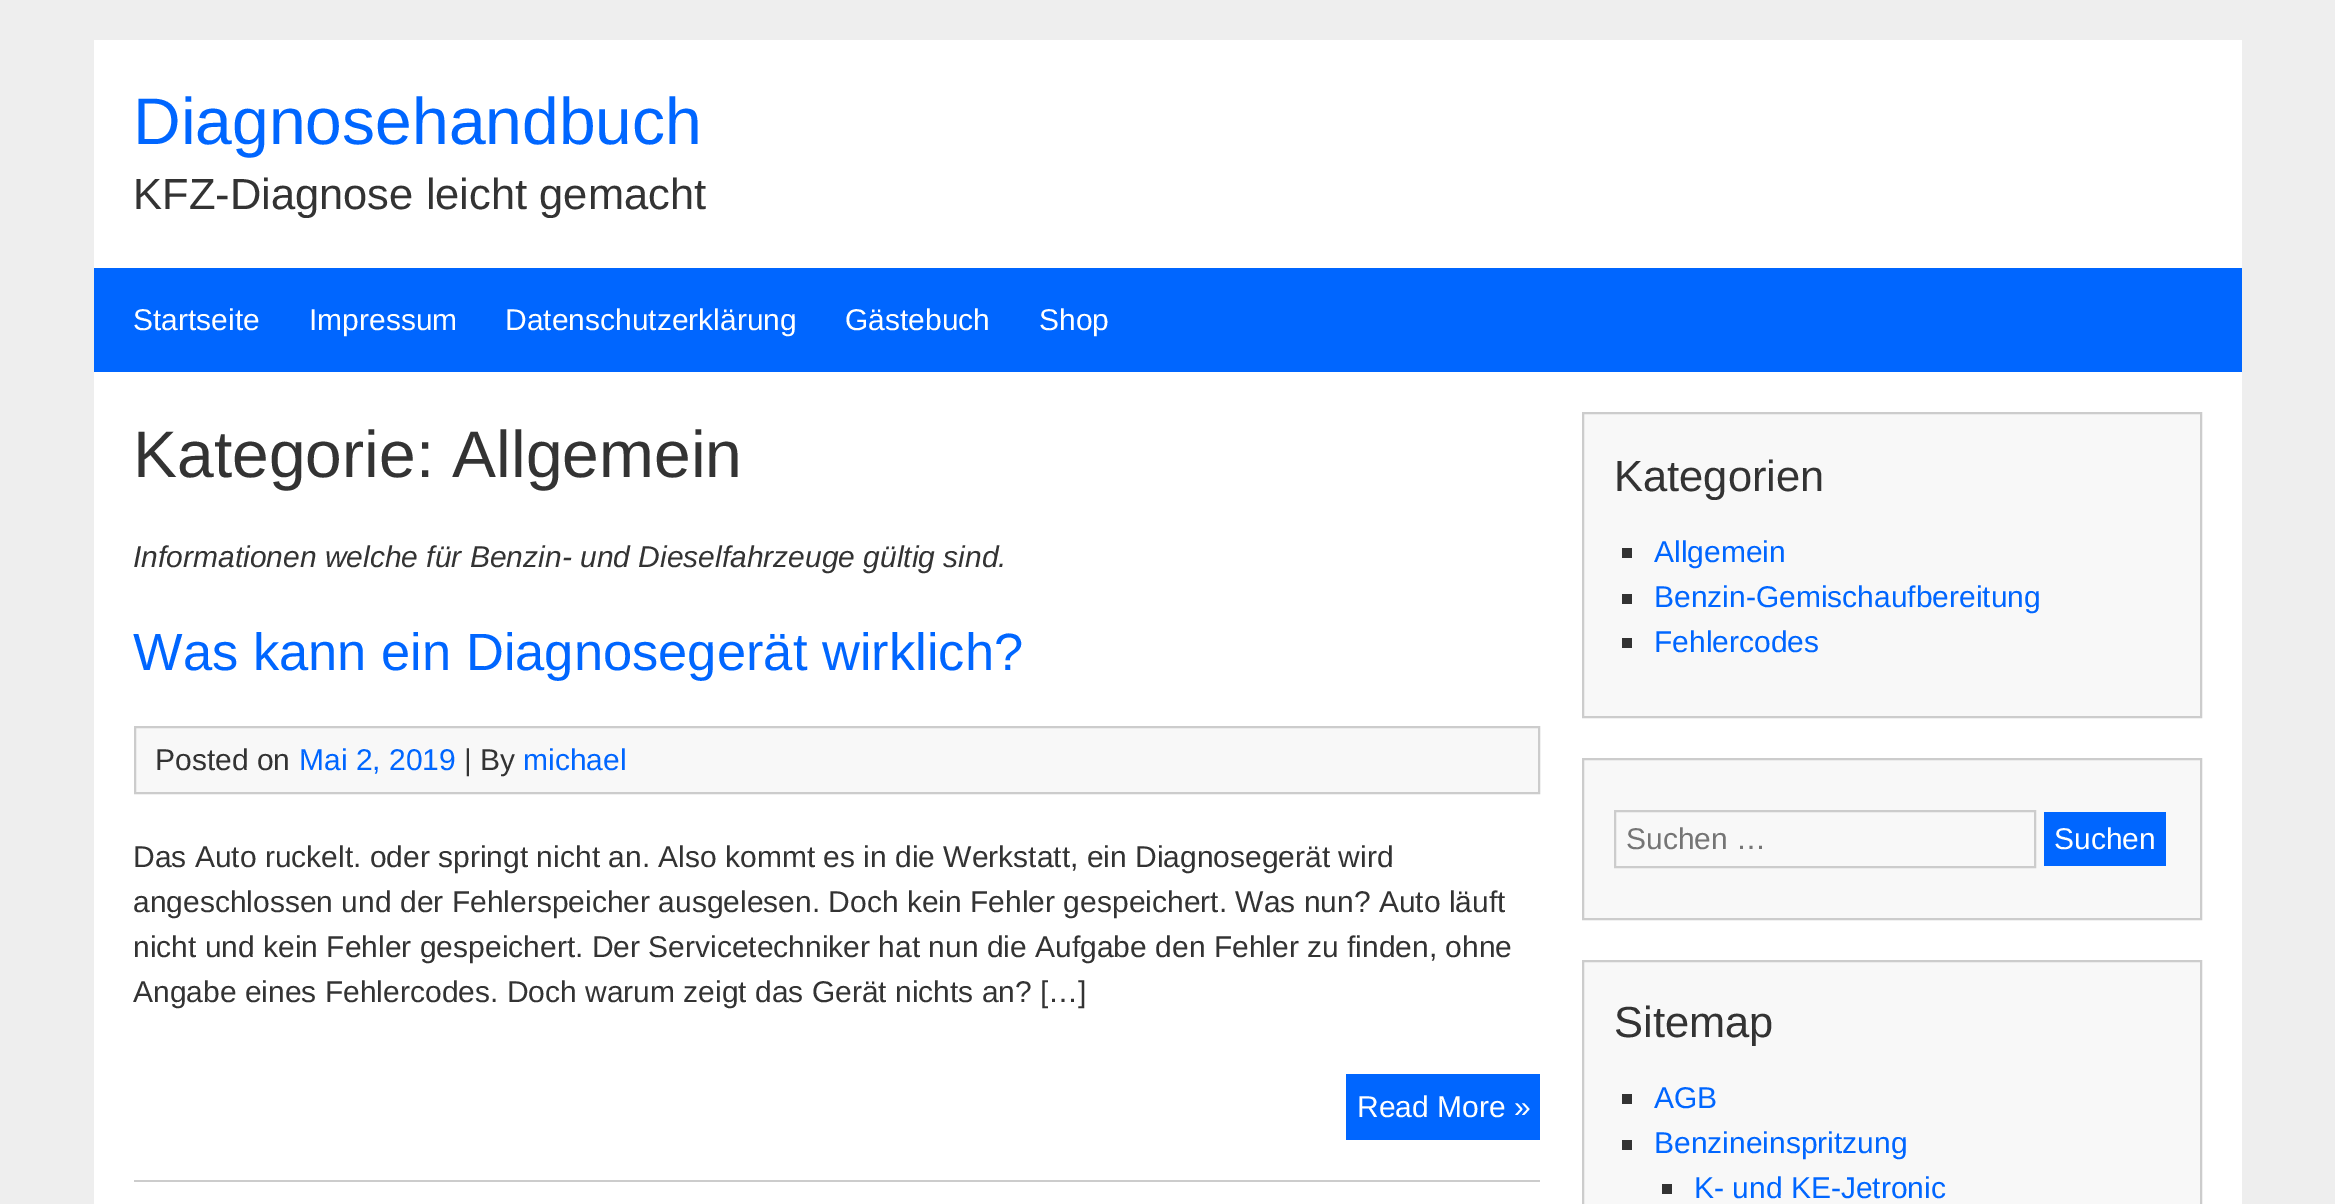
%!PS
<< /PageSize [2335 1204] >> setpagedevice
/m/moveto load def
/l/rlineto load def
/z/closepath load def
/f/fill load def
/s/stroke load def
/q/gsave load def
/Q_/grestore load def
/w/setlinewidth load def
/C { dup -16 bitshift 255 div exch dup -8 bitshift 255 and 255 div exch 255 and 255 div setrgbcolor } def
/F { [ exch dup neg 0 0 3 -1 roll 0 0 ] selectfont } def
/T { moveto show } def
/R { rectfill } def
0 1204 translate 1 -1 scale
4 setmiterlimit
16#EEEEEE C
0 0 2335 1204 R
16#FFFFFF C
94 40 2148 1164 R
/LiberationSans-Regular 66 F
16#0066FF C
(Diagnosehandbuch) 133 144 T
/LiberationSans-Regular 43.5 F
16#333333 C
(KFZ-Diagnose leicht gemacht) 133 209 T
16#0066FF C
94 268 2148 104 R
/LiberationSans-Regular 30 F
16#FFFFFF C
(Startseite) 133 330 T
(Impressum) 309 330 T
(Datenschutzerklärung) 505 330 T
(Gästebuch) 845 330 T
(Shop) 1039 330 T
/LiberationSans-Regular 66 F
16#333333 C
(Kategorie: Allgemein) 133 477 T
/LiberationSans-Italic 30 F
(Informationen welche für Benzin- und Dieselfahrzeuge gültig sind.) 133 567 T
16#CCCCCC C
134 1180 1406 2 R
/LiberationSans-Regular 52.5 F
16#0066FF C
(Was kann ein Diagnosegerät wirklich?) 133 670 T
16#F8F8F8 C
135 727 m 1404 0 l 0 66 l -1404 0 l z q f Q_
16#CCCCCC C
2 w
s
/LiberationSans-Regular 30 F
16#333333 C
(Posted on) 155 770 T
16#0066FF C
(Mai 2, 2019) 299 770 T
16#333333 C
(| By) 464 770 T
16#0066FF C
(michael) 523 770 T
16#333333 C
(Das Auto ruckelt. oder springt nicht an. Also kommt es in die Werkstatt, ein Diagnosegerät wird) 133 867 T
(angeschlossen und der Fehlerspeicher ausgelesen. Doch kein Fehler gespeichert. Was nun? Auto läuft) 133 912 T
(nicht und kein Fehler gespeichert. Der Servicetechniker hat nun die Aufgabe den Fehler zu finden, ohne) 133 957 T
(Angabe eines Fehlercodes. Doch warum zeigt das Gerät nichts an? […]) 133 1002 T
16#0066FF C
1346 1074 194 66 R
16#FFFFFF C
(Read More ») 1357 1117 T
16#F8F8F8 C
1583 413 m 618 0 l 0 304 l -618 0 l z q f Q_
16#CCCCCC C
s
/LiberationSans-Regular 43.5 F
16#333333 C
(Kategorien) 1614 491 T
1622 548 10 10 R
/LiberationSans-Regular 30 F
16#0066FF C
(Allgemein) 1654 562 T
16#333333 C
1622 594 10 10 R
16#0066FF C
(Benzin-Gemischaufbereitung) 1654 607 T
16#333333 C
1622 638 10 10 R
16#0066FF C
(Fehlercodes) 1654 652 T
16#F8F8F8 C
1583 759 m 618 0 l 0 160 l -618 0 l z q f Q_
16#CCCCCC C
s
1615 811 420 56 rectstroke
16#757575 C
(Suchen …) 1626 849 T
16#0066FF C
2044 812 122 54 R
16#FFFFFF C
(Suchen) 2054 849 T
16#F8F8F8 C
1583 961 m 618 0 l 0 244 l -618 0 l z q f Q_
16#CCCCCC C
s
/LiberationSans-Regular 43.5 F
16#333333 C
(Sitemap) 1614 1037 T
1622 1094 10 10 R
/LiberationSans-Regular 30 F
16#0066FF C
(AGB) 1654 1108 T
16#333333 C
1622 1140 10 10 R
16#0066FF C
(Benzineinspritzung) 1654 1153 T
16#333333 C
1662 1184 10 10 R
16#0066FF C
(K- und KE-Jetronic) 1694 1198 T
showpage
